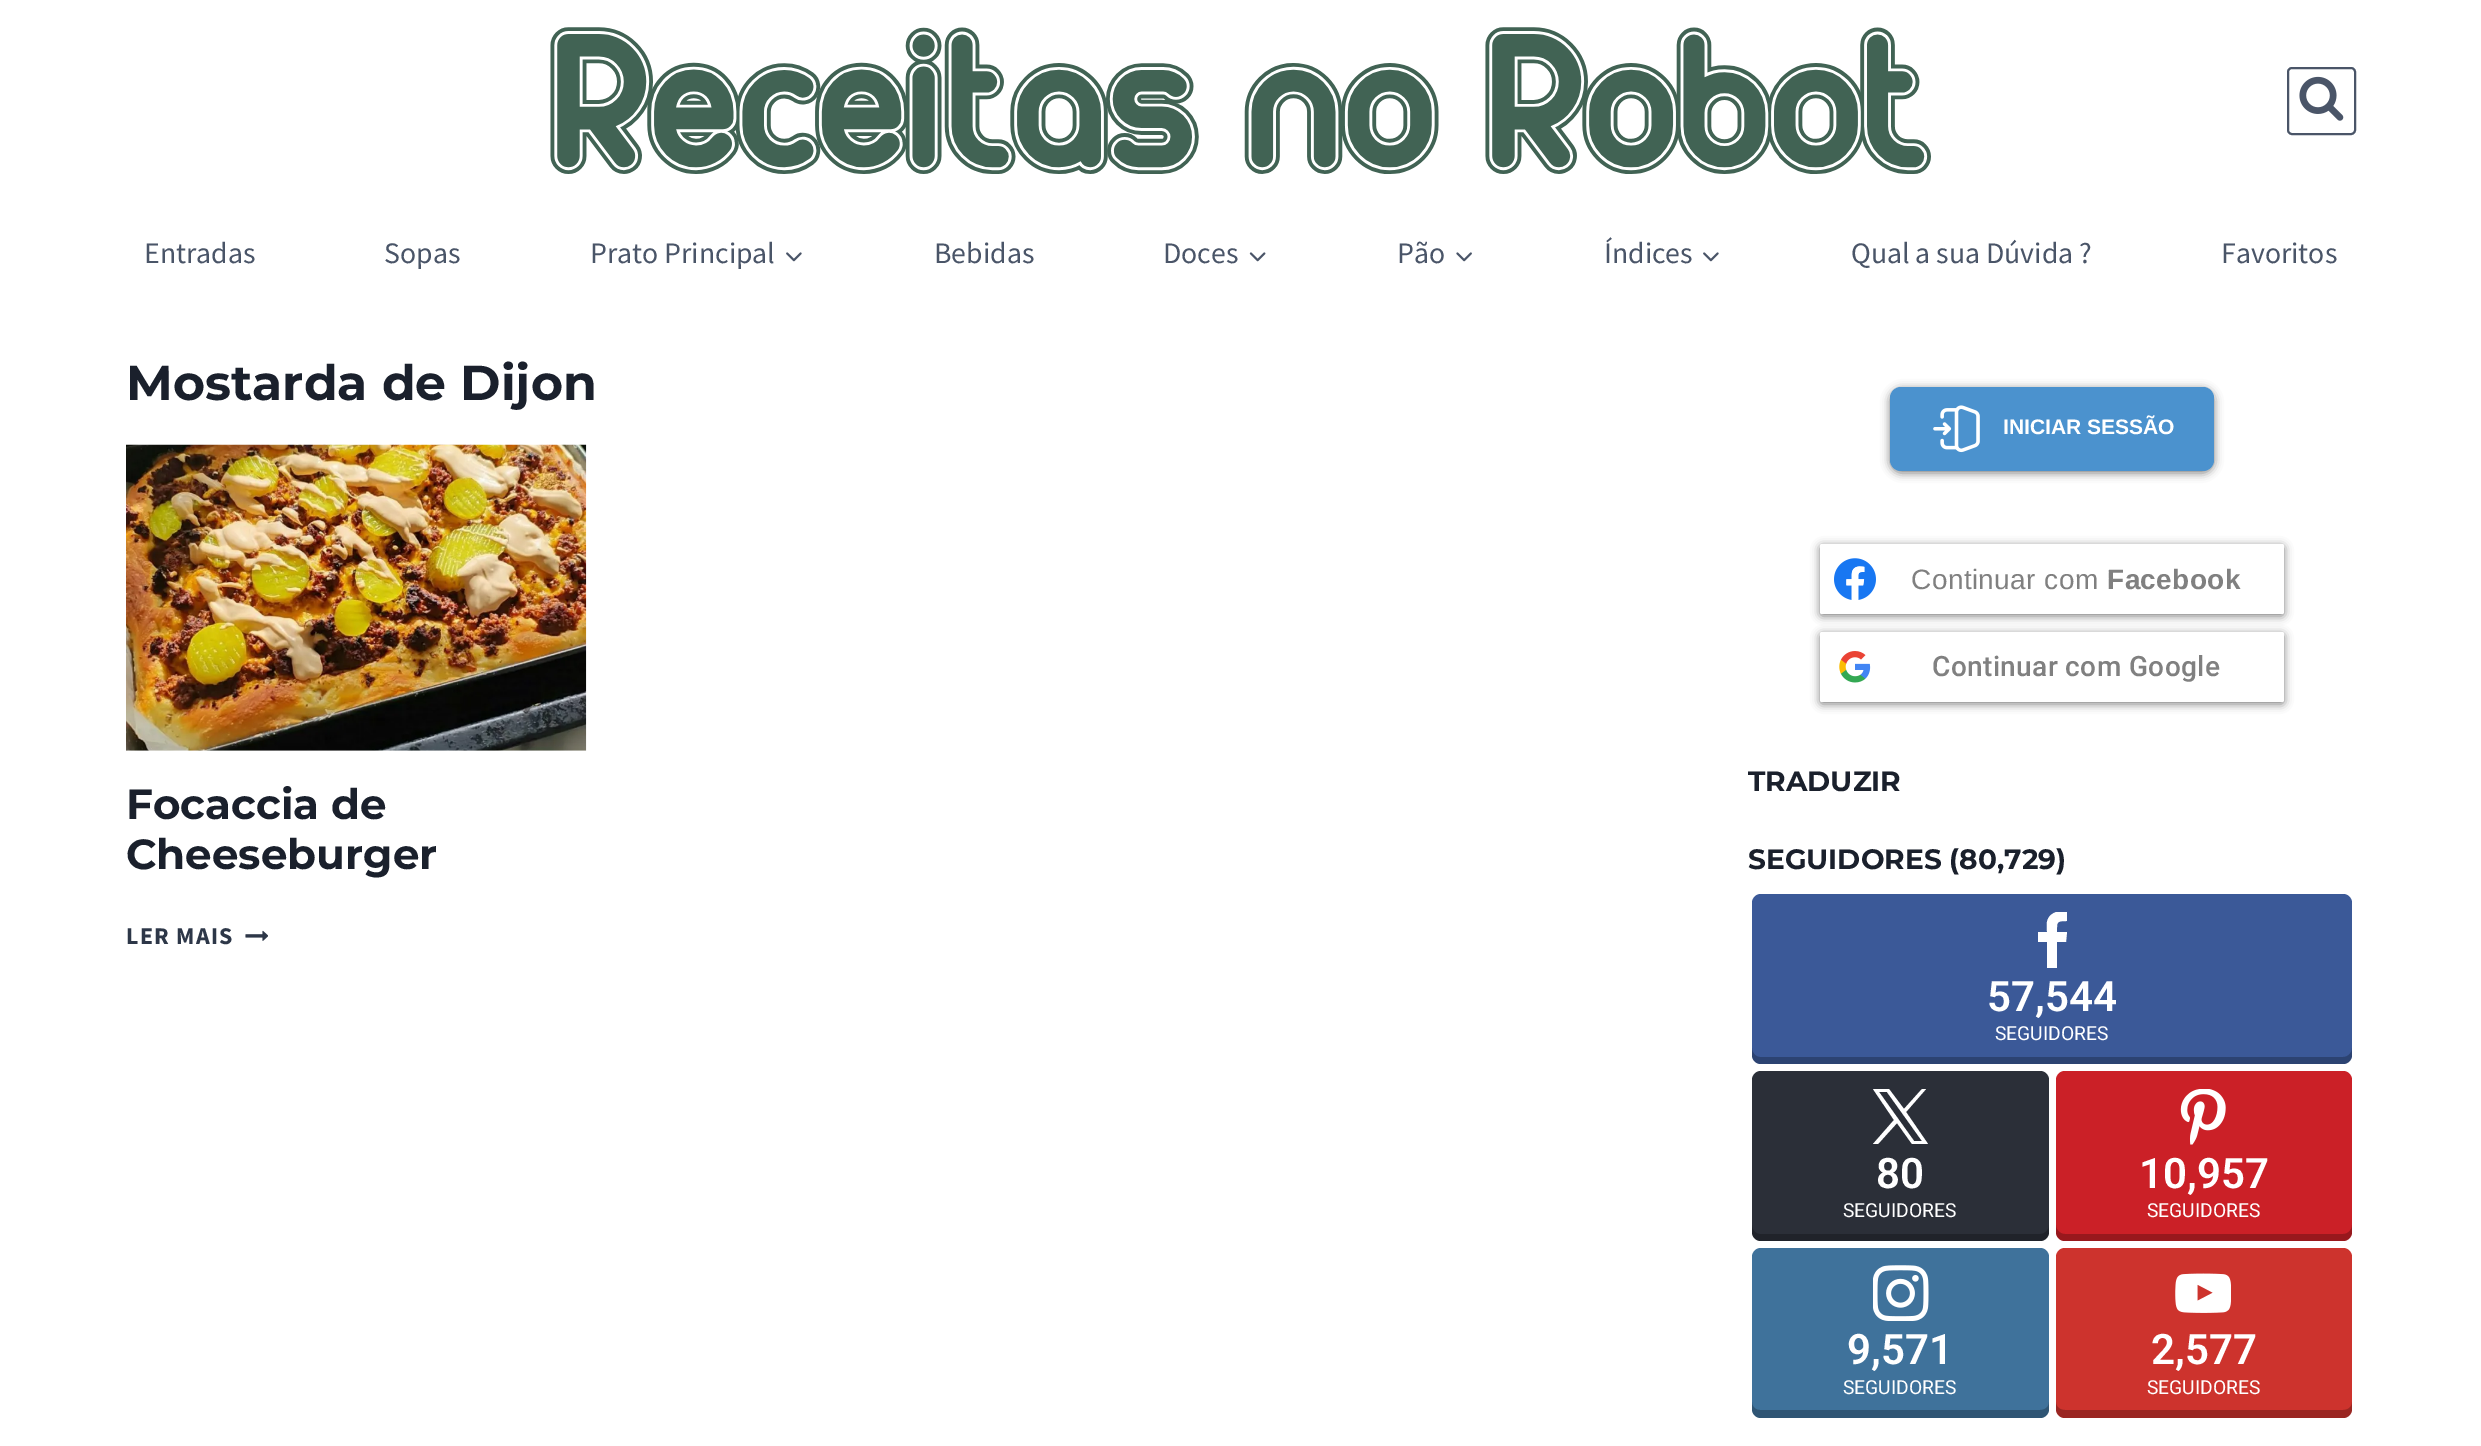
%!PS
<< /PageSize [2481 1446] /PageUsesTransparency true >> setpagedevice
/m/moveto load def
/l/rlineto load def
/c/rcurveto load def
/z/closepath load def
/f/fill load def
/s/stroke load def
/q/gsave load def
/Q_/grestore load def
/w/setlinewidth load def
/C { dup -16 bitshift 255 div exch dup -8 bitshift 255 and 255 div exch 255 and 255 div setrgbcolor } def
/F { [ exch dup neg 0 0 3 -1 roll 0 0 ] selectfont } def
/T { moveto show } def
/R { rectfill } def
/A { dup .setfillconstantalpha .setstrokeconstantalpha } def
/Q { 5 dict begin { /r /h /w /y /x } { exch def } forall
  x r add y moveto x w add y 2 copy h add r arct x w add y h add x 1 index r arct
  x y h add x y r arct x y 2 copy exch w add exch r arct closepath end } def
/S { 12 dict begin { /a /b /q /h /w /y /x } { exch def } forall gsave /was 0 def
  9 -2 -9 { dup b mul 4 div /e exch def 1 sub .425 mul 2.718 exch exp 1 add a .99 .min exch div /now exch def
    1 1 now sub 1 was sub div sub A /was now def
    w h .min e 2 mul add 0 gt { x e sub y e sub w e 2 mul add h e 2 mul add
      q e add b .6 mul add w h .min 2 div e add .min 0 .max Q fill } if } for grestore end } def
/I { 5 dict begin { /h /w /y /x /name } { exch def } forall
  gsave x y translate w h scale
  w h 8 [w 0 0 h 0 0] name (r) file false 3 colorimage grestore end } def
0 .pushpdf14devicefilter
0 1446 translate 1 -1 scale
4 setmiterlimit
16#FFFFFF C
0 0 2481 1446 R
(1.rgb) 550 27 1381 147 I
16#4A5568 C
2 w
2288 68 67 66 4 Q s
(2.rgb) 2299 76 45 45 I
/SourceSansPro-Regular 29.75 F
(Entradas) 144 263 T
(Sopas) 384 263 T
(Prato Principal) 590 263 T
(3.rgb) 786 252 16 10 I
(Bebidas) 934 263 T
(Doces) 1163 263 T
(4.rgb) 1249 252 17 10 I
(Pão) 1397 263 T
(5.rgb) 1456 252 16 10 I
(Índices) 1604 263 T
(3.rgb) 1703 252 16 10 I
(Qual a sua Dúvida ?) 1851 263 T
(Favoritos) 2221 263 T
/Montserrat-Thin 49 F
16#1A202C C
(Mostarda de Dijon) 126 400 T
(6.rgb) 126 444 461 307 I
/Montserrat-Thin 42 F
(Focaccia de) 126 819 T
(Cheeseburger) 126 869 T
/SourceSansPro-Bold 24 F
16#2D3748 C
126 944 m 1.25 0 (LER MAIS) ashow
(7.rgb) 245 930 23 11 I
16#000000 C
1890 389 324 84 11 4.5 .5 S
16#4B92CE C
1890 387 324 84 11 Q f
(8.rgb) 1933 405 47 48 I
/LiberationSans-Bold 21 F
16#FFFFFF C
(INICIAR SESSÃO) 2003 434 T
16#000000 C
1820 546 464 70 2 4.5 .5 S
16#FFFFFF C
1820 544 464 70 2 Q f
(9.rgb) 1834 558 42 42 I
/LiberationSans-Regular 28 F
16#808080 C
1911 589 m .4 0 (Continuar com) ashow
/LiberationSans-Bold 28 F
2107 589 m .4 0 (Facebook) ashow
16#000000 C
1820 634 464 70 2 4.5 .5 S
16#FFFFFF C
1820 632 464 70 2 Q f
(10.rgb) 1839 651 32 32 I
/Roboto-Medium 28 F
16#808080 C
1932 676 m .4 0 (Continuar com Google) ashow
/Montserrat-Thin 28 F
16#1A202C C
(TRADUZIR) 1748 791 T
(SEGUIDORES \(80,729\)) 1748 869 T
16#3B5998 C
1752 894 600 170 9 Q f
0.25 A
16#000000 C
1752 1048 m 0 7 l 0 5 4 9 9 9 c 582 0 l 5 0 9 -4 9 -9 c 0 -7 l 0 5 -4 9 -9 9 c -583 0 l -4 0 -8 -4 -8 -9 c z f
q
2025 912 56 56 rectclip
1 A
16#FFFFFF C
2057 968 m 0 -26 l 9 0 l 1 -10 l -10 0 l 0 -10 -1 -11 10 -11 c 0 -9 l -7 -2 -16 0 -19 7 c -2 4 -1 9 -1 13 c -9 0 l 0 10 l 9 0 l 0 26 l z f
Q_
/Roboto-SemiBold 42 F
1 A
16#FFFFFF C
(57,544) 1987 1011 T
/Roboto-Regular 19.25 F
(SEGUIDORES) 1995 1040 T
16#2B2F38 C
1752 1071 297 170 9 Q f
0.25 A
16#000000 C
1752 1225 m 0 7 l 0 5 4 9 9 9 c 279 0 l 5 0 9 -4 9 -9 c 0 -7 l 0 5 -4 9 -9 9 c -280 0 l -4 0 -8 -4 -8 -9 c z f
1 A
16#FFFFFF C
1906 1112 m 20 -23 l -4 0 l -18 20 l -15 -20 l -16 0 l 21 31 l -21 24 l 5 0 l 19 -21 l 15 21 l 16 0 l 1879 1092 m 8 0 l 35 49 l -8 0 l f
/Roboto-SemiBold 42 F
(80) 1876 1188 T
/Roboto-Regular 19.25 F
(SEGUIDORES) 1843 1217 T
16#CB2027 C
2056 1071 296 170 9 Q f
0.25 A
16#000000 C
2056 1225 m 0 7 l 0 5 4 9 9 9 c 278 0 l 5 0 9 -4 9 -9 c 0 -7 l 0 5 -4 9 -9 9 c -278 0 l -5 0 -9 -4 -9 -9 c z f
1 A
(11.rgb) 2180 1089 46 56 I
/Roboto-SemiBold 42 F
16#FFFFFF C
(10,957) 2139 1188 T
/Roboto-Regular 19.25 F
(SEGUIDORES) 2147 1217 T
16#3F729B C
1752 1248 297 170 9 Q f
0.25 A
16#000000 C
1752 1402 m 0 7 l 0 5 4 9 9 9 c 279 0 l 5 0 9 -4 9 -9 c 0 -7 l 0 5 -4 8 -9 8 c -280 0 l -4 0 -8 -3 -8 -8 c z f
1 A
(12.rgb) 1873 1265 56 56 I
/Roboto-SemiBold 42 F
16#FFFFFF C
(9,571) 1847 1364 T
/Roboto-Regular 19.25 F
(SEGUIDORES) 1843 1394 T
16#CD332D C
2056 1248 296 170 9 Q f
0.25 A
16#000000 C
2056 1402 m 0 7 l 0 5 4 9 9 9 c 278 0 l 5 0 9 -4 9 -9 c 0 -7 l 0 5 -4 8 -9 8 c -278 0 l -5 0 -9 -3 -9 -8 c z f
1 A
(13.rgb) 2175 1273 56 40 I
/Roboto-SemiBold 42 F
16#FFFFFF C
(2,577) 2151 1364 T
/Roboto-Regular 19.25 F
(SEGUIDORES) 2147 1394 T
.poppdf14devicefilter showpage
